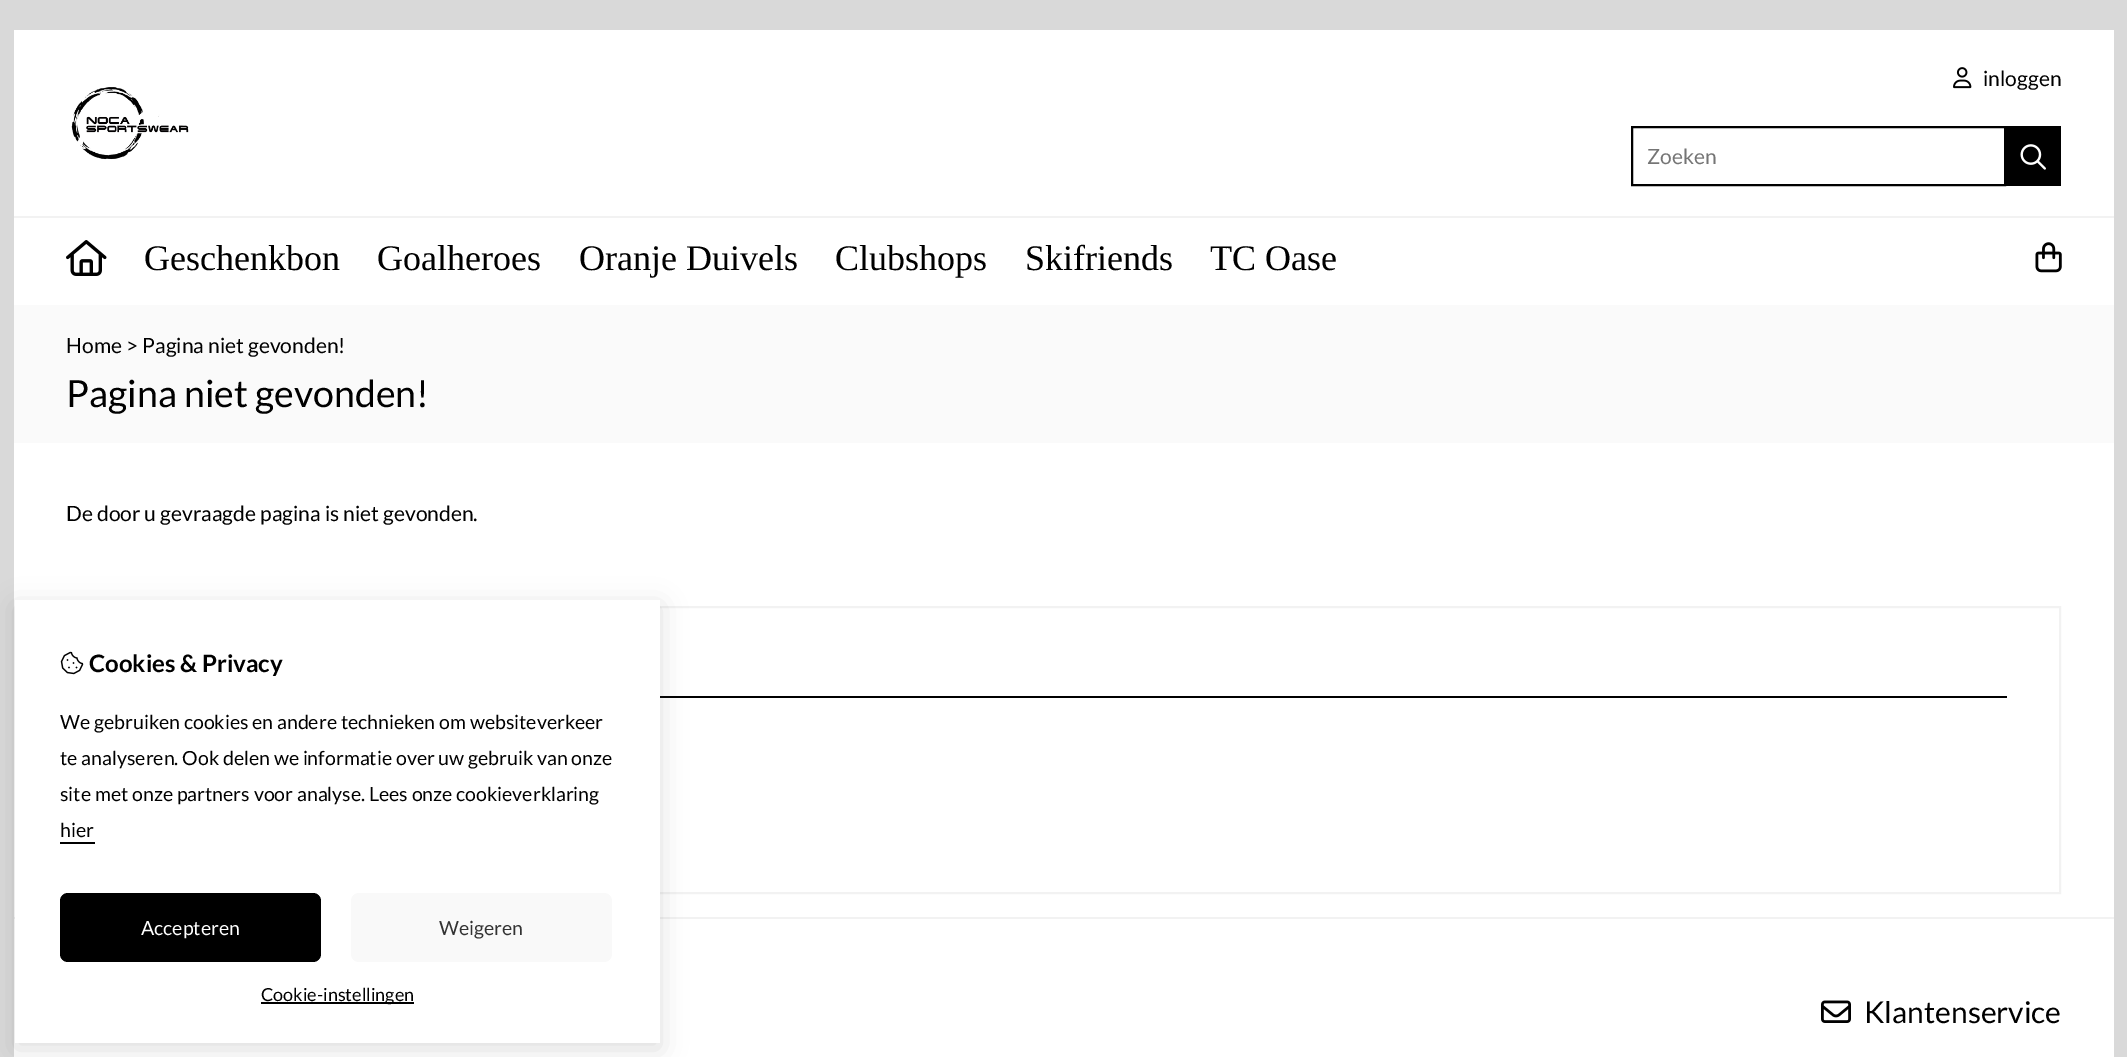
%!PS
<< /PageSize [2127 1057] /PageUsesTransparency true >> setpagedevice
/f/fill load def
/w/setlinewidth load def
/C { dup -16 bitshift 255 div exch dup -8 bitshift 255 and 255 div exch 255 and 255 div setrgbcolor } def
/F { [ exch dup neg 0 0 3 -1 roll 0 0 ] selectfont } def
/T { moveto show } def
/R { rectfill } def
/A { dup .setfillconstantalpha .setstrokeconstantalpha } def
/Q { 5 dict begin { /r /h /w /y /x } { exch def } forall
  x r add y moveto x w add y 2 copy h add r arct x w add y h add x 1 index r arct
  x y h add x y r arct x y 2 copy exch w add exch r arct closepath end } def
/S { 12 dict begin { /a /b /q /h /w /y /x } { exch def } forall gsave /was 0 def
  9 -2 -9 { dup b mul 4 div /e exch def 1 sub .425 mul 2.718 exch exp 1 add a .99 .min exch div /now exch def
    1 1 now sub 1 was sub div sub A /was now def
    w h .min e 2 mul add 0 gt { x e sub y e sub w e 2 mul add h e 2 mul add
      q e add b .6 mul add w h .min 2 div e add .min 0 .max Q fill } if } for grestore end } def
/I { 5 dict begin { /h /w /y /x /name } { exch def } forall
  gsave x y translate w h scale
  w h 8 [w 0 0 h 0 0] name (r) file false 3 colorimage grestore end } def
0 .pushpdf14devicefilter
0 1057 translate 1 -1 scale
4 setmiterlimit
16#D9D9D9 C
0 0 2127 1057 R
16#FFFFFF C
14 30 2100 1027 R
(1.rgb) 71 87 118 73 I
(2.rgb) 1953 67 19 22 I
/Lato-Regular 21 F
16#000000 C
(inloggen) 1983 86 T
2 w
1632 127 373 58 rectstroke
16#757575 C
(Zoeken) 1647 164 T
16#000000 C
2006 126 55 60 R
(3.rgb) 2020 144 26 26 I
16#F2F2F2 C
14 216 2100 2 R
(4.rgb) 66 240 41 36 I
/LiberationSerif-Regular 36 F
16#000000 C
(Geschenkbon) 144 270 T
(Goalheroes) 377 270 T
(Oranje Duivels) 579 270 T
(Clubshops) 835 270 T
(Skifriends) 1025 270 T
(TC Oase) 1210 270 T
(5.rgb) 2035 242 27 31 I
16#FAFAFA C
14 305 2100 138 R
/Lato-Regular 21 F
16#000000 C
(Home > Pagina niet gevonden!) 66 353 T
/Lato-Regular 37.5 F
(Pagina niet gevonden!) 66 407 T
/Lato-Regular 21 F
(De door u gevraagde pagina is niet gevonden.) 66 521 T
16#F2F2F2 C
67 607 1993 286 rectstroke
16#000000 C
660 696 1347 2 R
16#F2F2F2 C
14 917 2100 2 R
(6.rgb) 1821 1000 30 23 I
/Lato-Regular 30 F
16#000000 C
(Klantenservice) 1864 1023 T
16#4C4C4C C
15 606 645 443 0 13 .2 S
16#FFFFFF C
15 600 645 443 R
(7.rgb) 60 651 24 24 I
/Lato-Bold 24 F
16#000000 C
(Cookies & Privacy) 89 672 T
/Lato-Regular 19.5 F
(We gebruiken cookies en andere technieken om websiteverkeer) 60 729 T
(te analyseren. Ook delen we informatie over uw gebruik van onze) 60 765 T
(site met onze partners voor analyse. Lees onze cookieverklaring) 60 801 T
(hier) 60 837 T
60 842 35 2 R
60 893 261 69 8 Q f
16#FFFFFF C
(Accepteren) 141 935 T
16#F9F9F9 C
351 893 261 69 8 Q f
16#333333 C
(Weigeren) 439 935 T
16#000000 C
261 1002 153 2 R
/Lato-Regular 18 F
(Cookie-instellingen) 261 1001 T
.poppdf14devicefilter showpage
